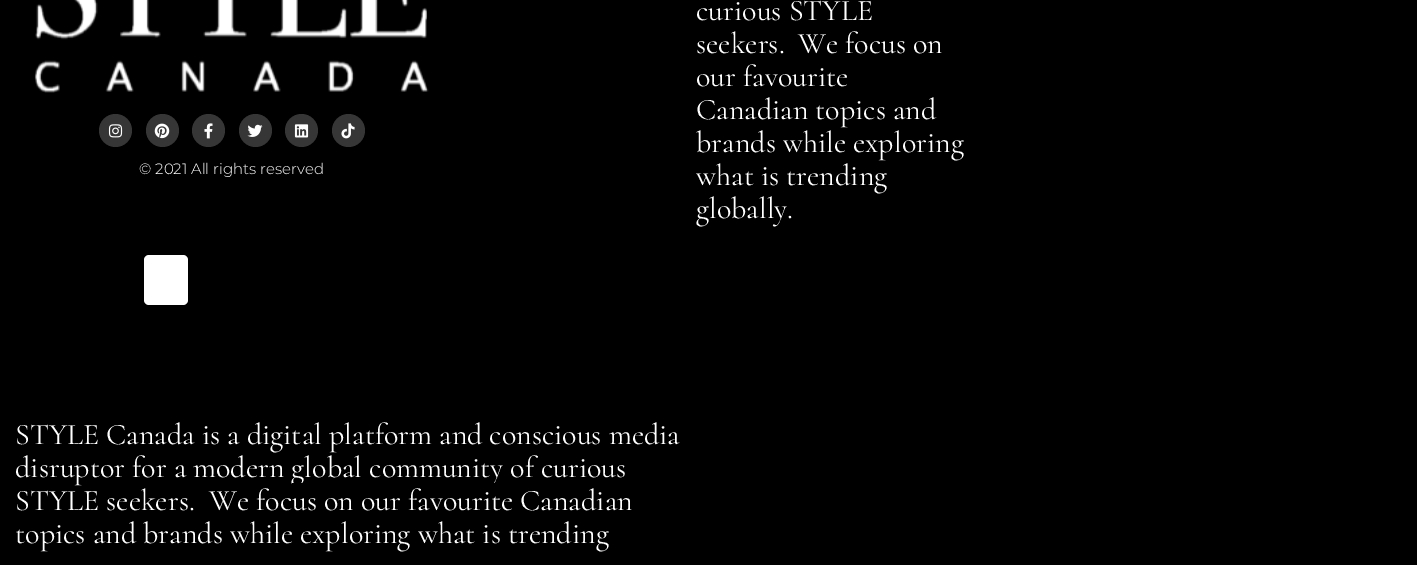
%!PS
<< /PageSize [1417 565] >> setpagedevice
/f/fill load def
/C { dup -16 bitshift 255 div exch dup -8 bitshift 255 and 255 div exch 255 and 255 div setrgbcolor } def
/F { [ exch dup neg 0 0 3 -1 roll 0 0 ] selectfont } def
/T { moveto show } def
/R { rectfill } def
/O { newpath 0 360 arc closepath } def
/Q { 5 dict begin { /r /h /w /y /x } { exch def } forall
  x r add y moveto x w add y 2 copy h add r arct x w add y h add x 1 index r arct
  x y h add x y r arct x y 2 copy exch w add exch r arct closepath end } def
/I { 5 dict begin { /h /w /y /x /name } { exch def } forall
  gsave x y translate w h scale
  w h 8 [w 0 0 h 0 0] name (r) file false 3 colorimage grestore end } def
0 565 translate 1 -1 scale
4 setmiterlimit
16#000000 C
0 0 1417 565 R
(1.rgb) 34 0 395 93 I
16#363636 C
115.5 130.5 16.5 O f
(2.rgb) 108 124 15 14 I
162.5 130.5 16.5 O f
(3.rgb) 154 123 16 16 I
208.5 130.5 16.5 O f
(4.rgb) 204 123 9 16 I
255.5 130.5 16.5 O f
(5.rgb) 247 124 16 13 I
301.5 130.5 16.5 O f
(6.rgb) 294 124 15 14 I
348.5 130.5 16.5 O f
(7.rgb) 341 123 14 16 I
/Montserrat-Light 15 F
16#FFFFFF C
(© 2021 All rights reserved) 139 174 T
/Cormorant-Regular 30 F
(curious STYLE) 696 20 T
(seekers.) 696 53 T
(We focus on) 798 53 T
(our favourite) 696 86 T
(Canadian topics and) 696 119 T
(brands while exploring) 696 152 T
(what is trending) 696 185 T
(globally.) 696 218 T
144 255 44 50 5 Q f
(STYLE Canada is a digital platform and conscious media) 15 444 T
(disruptor for a modern global community of curious) 15 477 T
(STYLE seekers.) 15 510 T
(We focus on our favourite Canadian) 209 510 T
16#000000 C
292 483 203 3 R
16#FFFFFF C
(topics and brands while exploring what is trending) 15 543 T
showpage
